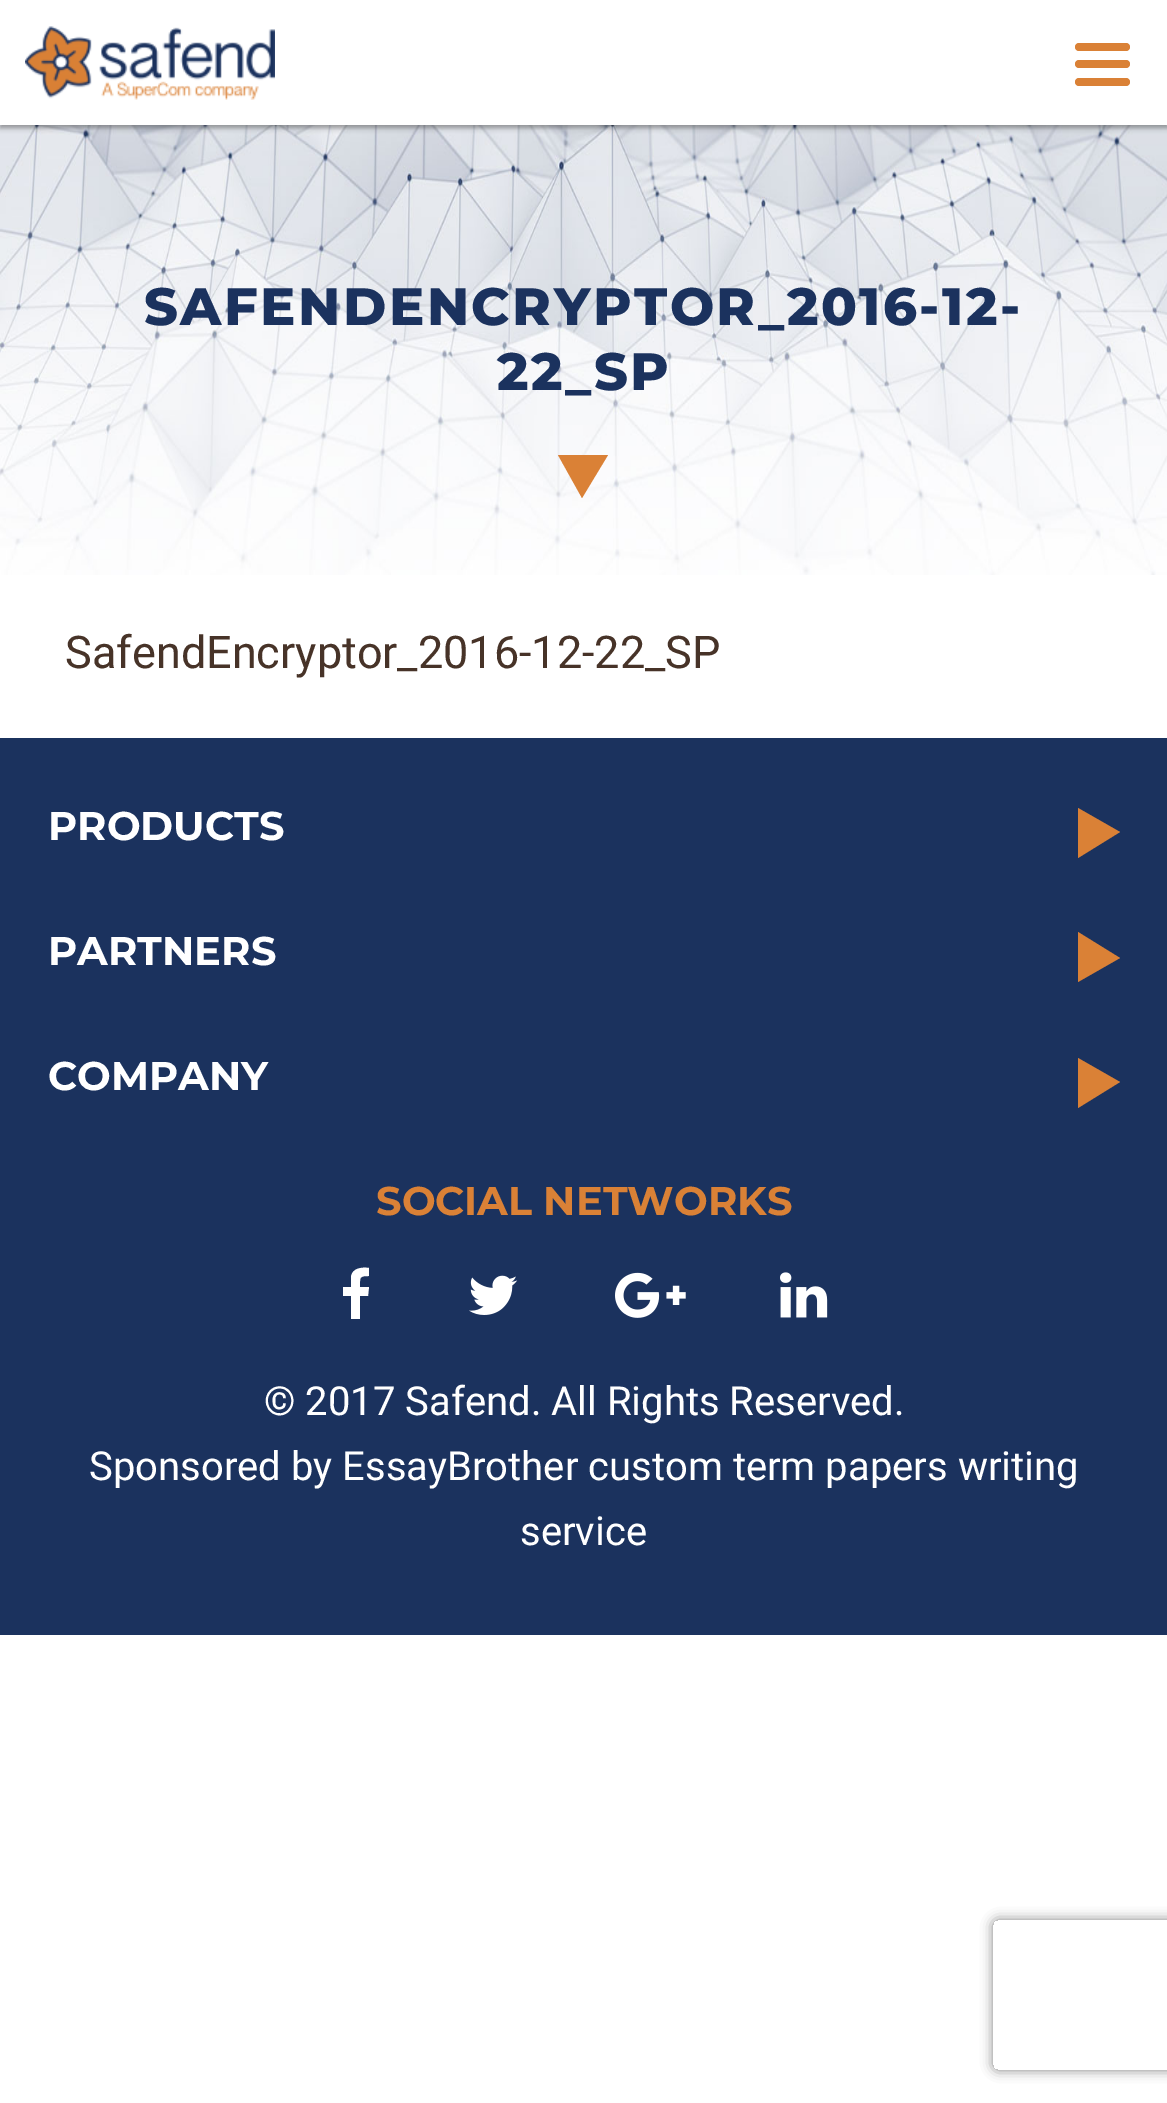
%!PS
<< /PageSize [1167 2103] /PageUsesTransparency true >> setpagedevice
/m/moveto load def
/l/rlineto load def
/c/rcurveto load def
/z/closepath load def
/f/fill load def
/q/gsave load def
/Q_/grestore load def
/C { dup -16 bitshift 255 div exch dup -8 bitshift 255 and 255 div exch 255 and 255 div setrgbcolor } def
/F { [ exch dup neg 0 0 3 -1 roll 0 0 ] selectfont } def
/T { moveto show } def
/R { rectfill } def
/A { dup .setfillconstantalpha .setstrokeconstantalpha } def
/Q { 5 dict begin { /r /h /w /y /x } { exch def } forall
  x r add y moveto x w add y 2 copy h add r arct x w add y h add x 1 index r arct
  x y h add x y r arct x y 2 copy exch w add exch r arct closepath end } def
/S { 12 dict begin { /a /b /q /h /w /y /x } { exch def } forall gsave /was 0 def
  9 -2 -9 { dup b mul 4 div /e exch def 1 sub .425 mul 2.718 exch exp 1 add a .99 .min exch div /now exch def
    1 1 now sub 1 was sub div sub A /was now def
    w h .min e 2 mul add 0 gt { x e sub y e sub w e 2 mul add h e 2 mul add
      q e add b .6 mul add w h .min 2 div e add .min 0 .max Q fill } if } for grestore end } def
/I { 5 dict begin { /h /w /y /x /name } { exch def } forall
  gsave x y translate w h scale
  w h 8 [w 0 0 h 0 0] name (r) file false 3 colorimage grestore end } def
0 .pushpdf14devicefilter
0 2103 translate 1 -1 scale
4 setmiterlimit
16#FFFFFF C
0 0 1167 2103 R
(1.rgb) 0 125 1167 450 I
16#333333 C
0 3 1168 125 0 2.5 .47 S
16#FFFFFF C
0 0 1167 125 R
(2.rgb) 25 26 250 74 I
16#DA8136 C
1075 43 55 8 4 Q f
1075 60 55 8 4 Q f
1075 78 55 8 4 Q f
/Montserrat-ExtraBold 52.5 F
16#1B325E C
144 325 m 2.5 0 (SAFENDENCRYPTOR_2016-12-) ashow
497 390 m 2.5 0 (22_SP) ashow
16#DA8136 C
558 455 m 50 0 l -26 43 l z f
/Heebo-Regular 45 F
16#473328 C
(SafendEncryptor_2016-12-22_SP) 65 668 T
16#1B325E C
0 738 1167 897 R
/Montserrat-Bold 40 F
16#FFFFFF C
(PRODUCTS) 48 840 T
16#DA8136 C
1078 858 m 0 -50 l 42 24 l z f
16#FFFFFF C
(PARTNERS) 48 965 T
16#DA8136 C
1078 982 m 0 -50 l 42 26 l z f
16#FFFFFF C
(COMPANY) 48 1090 T
16#DA8136 C
1078 1108 m 0 -50 l 42 24 l z f
(SOCIAL NETWORKS) 376 1215 T
16#FFFFFF C
369 1268 m 0 8 l -10 0 -9 1 -9 11 c 9 0 l -1 9 l -8 0 l 0 23 l -9 0 l 0 -23 l -8 0 l 0 -9 l 8 0 l 0 -10 l 1 -9 11 -10 18 -9 c z f
(3.rgb) 469 1275 49 40 I
(4.rgb) 615 1272 71 46 I
(5.rgb) 780 1272 48 46 I
/Heebo-Regular 40 F
(© 2017 Safend. All Rights Reserved.) 264 1415 T
(Sponsored by EssayBrother custom term papers writing) 89 1480 T
(service) 520 1545 T
q
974 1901 m 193 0 l 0 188 l -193 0 l z 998 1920 m 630 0 l 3 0 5 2 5 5 c 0 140 l 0 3 -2 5 -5 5 c -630 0 l -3 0 -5 -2 -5 -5 c 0 -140 l 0 -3 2 -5 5 -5 c z eoclip newpath
16#808080 C
993 1920 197 150 5 6 1 S
Q_
.poppdf14devicefilter showpage
